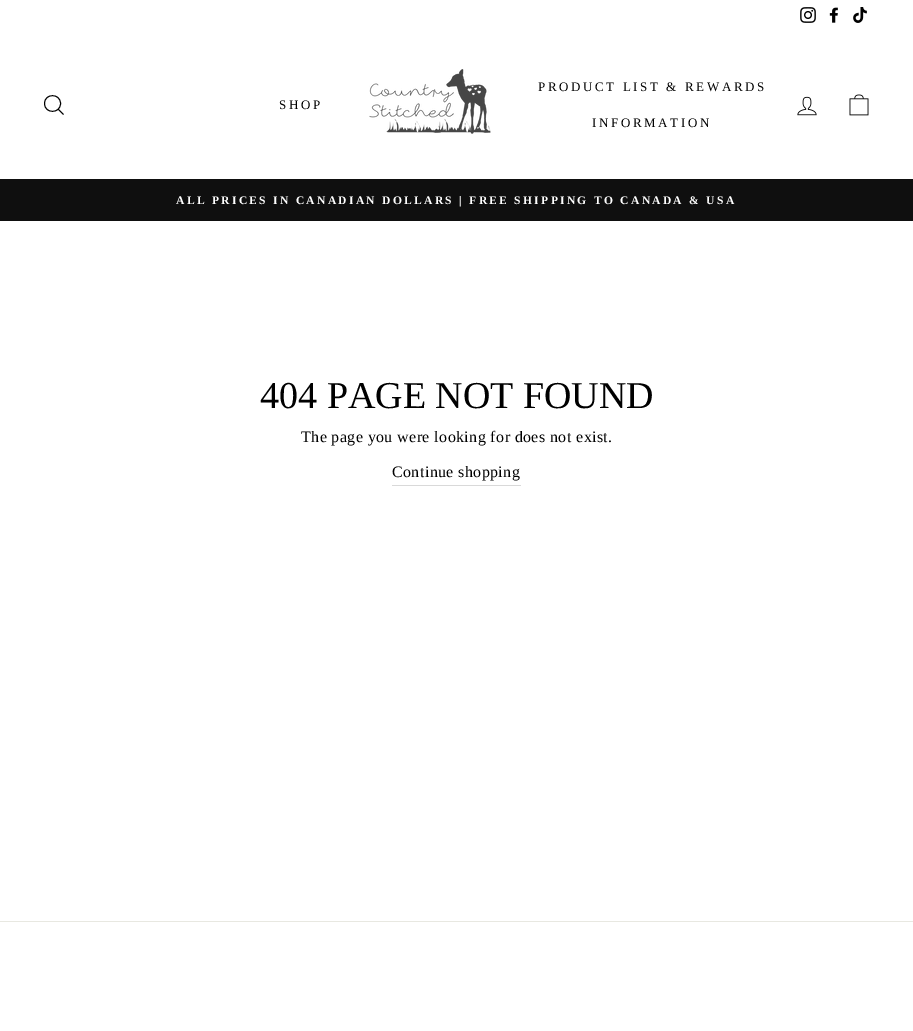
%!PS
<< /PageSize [913 1031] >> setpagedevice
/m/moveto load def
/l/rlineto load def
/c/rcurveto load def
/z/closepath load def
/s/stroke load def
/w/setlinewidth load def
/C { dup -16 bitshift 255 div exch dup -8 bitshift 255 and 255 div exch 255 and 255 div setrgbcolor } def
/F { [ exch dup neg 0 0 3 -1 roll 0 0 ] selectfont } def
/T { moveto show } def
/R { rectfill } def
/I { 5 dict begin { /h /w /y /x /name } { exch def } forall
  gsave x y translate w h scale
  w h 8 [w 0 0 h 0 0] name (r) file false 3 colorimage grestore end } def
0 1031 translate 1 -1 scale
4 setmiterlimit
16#FFFFFF C
0 0 913 1031 R
(1.rgb) 800 7 16 16 I
(2.rgb) 829 7 9 16 I
(3.rgb) 853 7 14 16 I
16#000000 C
.9 w
60.5 103.5 m 0 10.5 -16 10.5 -16 0 c 0 -10.5 16 -10.5 16 0 c z 63.5 114.5 m -5 -5 l s
/LiberationSerif-Regular 13 F
279 109 m 2.6 0 (SHOP) ashow
(4.rgb) 369 69 122 65 I
538 91 m 2.6 0 (PRODUCT LIST & REWARDS) ashow
592 127 m 2.6 0 (INFORMATION) ashow
(5.rgb) 797 96 20 20 I
(6.rgb) 849 94 20 22 I
16#0F0F0F C
0 179 913 42 R
/LiberationSerif-Bold 11.55 F
16#FFFFFF C
176 204 m 2.3 0 (ALL PRICES IN CANADIAN DOLLARS | FREE SHIPPING TO CANADA & USA) ashow
/LiberationSerif-Regular 38 F
16#000000 C
(404 PAGE NOT FOUND) 260 408 T
/LiberationSerif-Regular 16 F
301 442 m .4 0 (The page you were looking for does not exist.) ashow
16#D9D9D9 C
392 485 129 1 R
16#000000 C
392 477 m .4 0 (Continue shopping) ashow
16#E8E8E1 C
0 921 913 1 R
showpage
